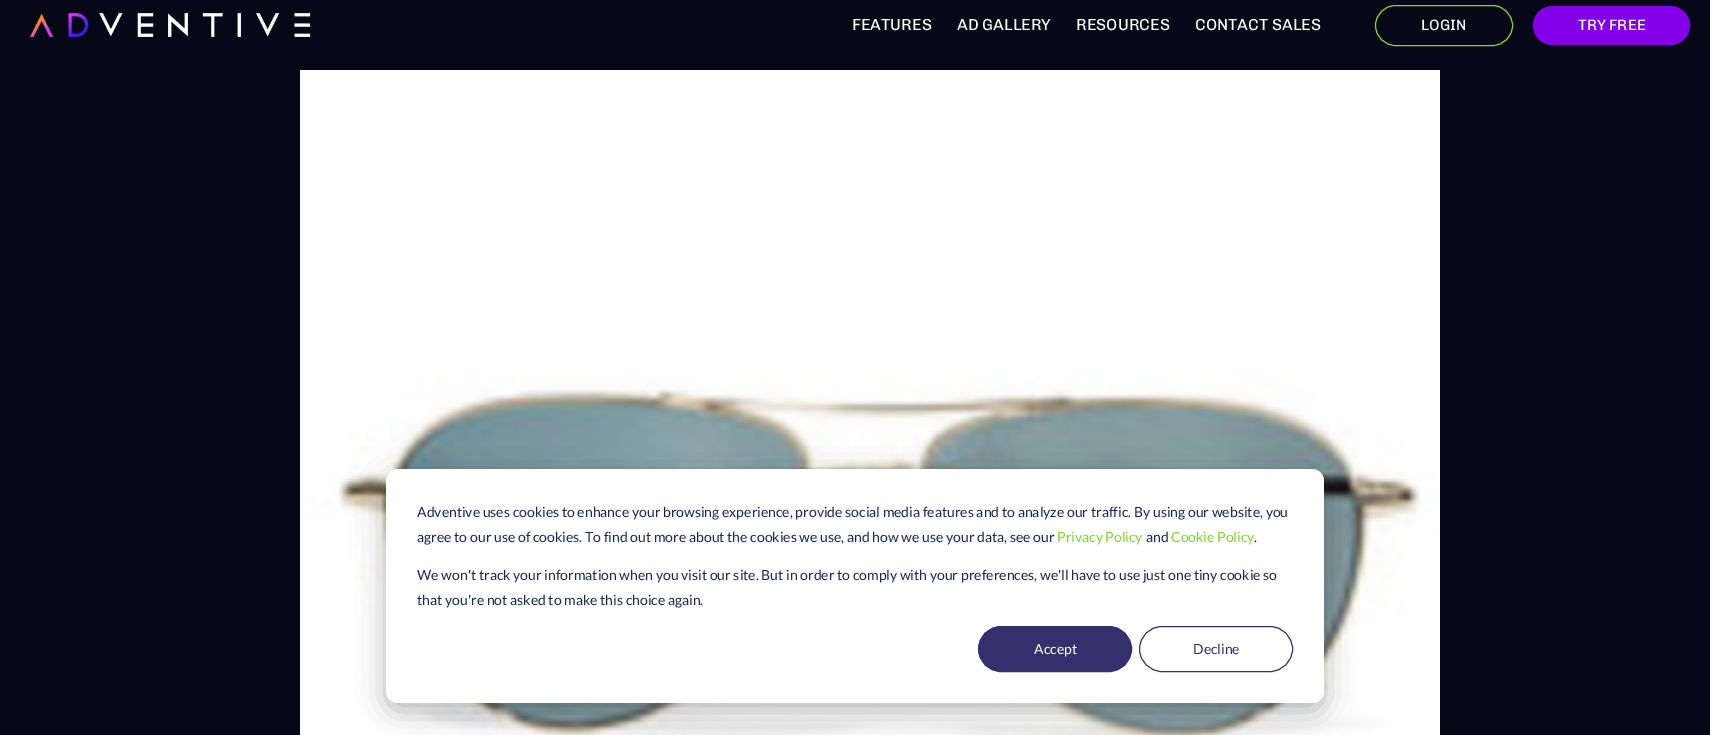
%!PS
<< /PageSize [1710 735] /PageUsesTransparency true >> setpagedevice
/f/fill load def
/s/stroke load def
/q/gsave load def
/Q_/grestore load def
/C { dup -16 bitshift 255 div exch dup -8 bitshift 255 and 255 div exch 255 and 255 div setrgbcolor } def
/F { [ exch dup neg 0 0 3 -1 roll 0 0 ] selectfont } def
/T { moveto show } def
/R { rectfill } def
/A { dup .setfillconstantalpha .setstrokeconstantalpha } def
/Q { 5 dict begin { /r /h /w /y /x } { exch def } forall
  x r add y moveto x w add y 2 copy h add r arct x w add y h add x 1 index r arct
  x y h add x y r arct x y 2 copy exch w add exch r arct closepath end } def
/S { 12 dict begin { /a /b /q /h /w /y /x } { exch def } forall gsave /was 0 def
  9 -2 -9 { dup b mul 4 div /e exch def 1 sub .425 mul 2.718 exch exp 1 add a .99 .min exch div /now exch def
    1 1 now sub 1 was sub div sub A /was now def
    w h .min e 2 mul add 0 gt { x e sub y e sub w e 2 mul add h e 2 mul add
      q e add b .6 mul add w h .min 2 div e add .min 0 .max Q fill } if } for grestore end } def
/I { 5 dict begin { /h /w /y /x /name } { exch def } forall
  gsave x y translate w h scale
  w h 8 [w 0 0 h 0 0] name (r) file false 3 colorimage grestore end } def
0 .pushpdf14devicefilter
0 735 translate 1 -1 scale
4 setmiterlimit
16#060717 C
0 0 1710 735 R
(1.rgb) 29 13 282 24 I
/Chivo-Regular 16 F
16#FFFFFF C
(FEATURES) 852 30 T
(AD GALLERY) 957 30 T
(RESOURCES) 1076 30 T
(CONTACT SALES) 1195 30 T
16#7CDA24 C
1375.5 5.5 137 40 20 Q s
/Chivo-Regular 15 F
16#FFFFFF C
(LOGIN) 1421 30 T
16#8300E9 C
1533 6 157 39 19.5 Q f
16#FFFFFF C
(TRY FREE) 1578 30 T
(2.rgb) 300 70 1140 665 I
16#000000 C
386 477 938 234 12 14 .28 S
16#FFFFFF C
386 469 938 234 12 Q f
/Lato-Regular 14 F
16#15295A C
(Adventive uses cookies to enhance your browsing experience, provide social media features and to analyze our traffic. By using our website, you) 417 517 T
(agree to our use of cookies. To find out more about the cookies we use, and how we use your data, see our) 417 542 T
16#7CDA24 C
(Privacy Policy) 1057 542 T
16#15295A C
(and) 1146 542 T
16#7CDA24 C
(Cookie Policy) 1171 542 T
16#15295A C
(.) 1254 542 T
(We won't track your information when you visit our site. But in order to comply with your preferences, we'll have to use just one tiny cookie so) 417 580 T
(that you're not asked to make this choice again.) 417 605 T
16#352F6B C
978.5 626.5 153 45 22.5 Q q f Q_
s
16#FFFFFF C
(Accept) 1034 654 T
16#352F6B C
1139.5 626.5 153 45 22.5 Q s
(Decline) 1193 654 T
.poppdf14devicefilter showpage
